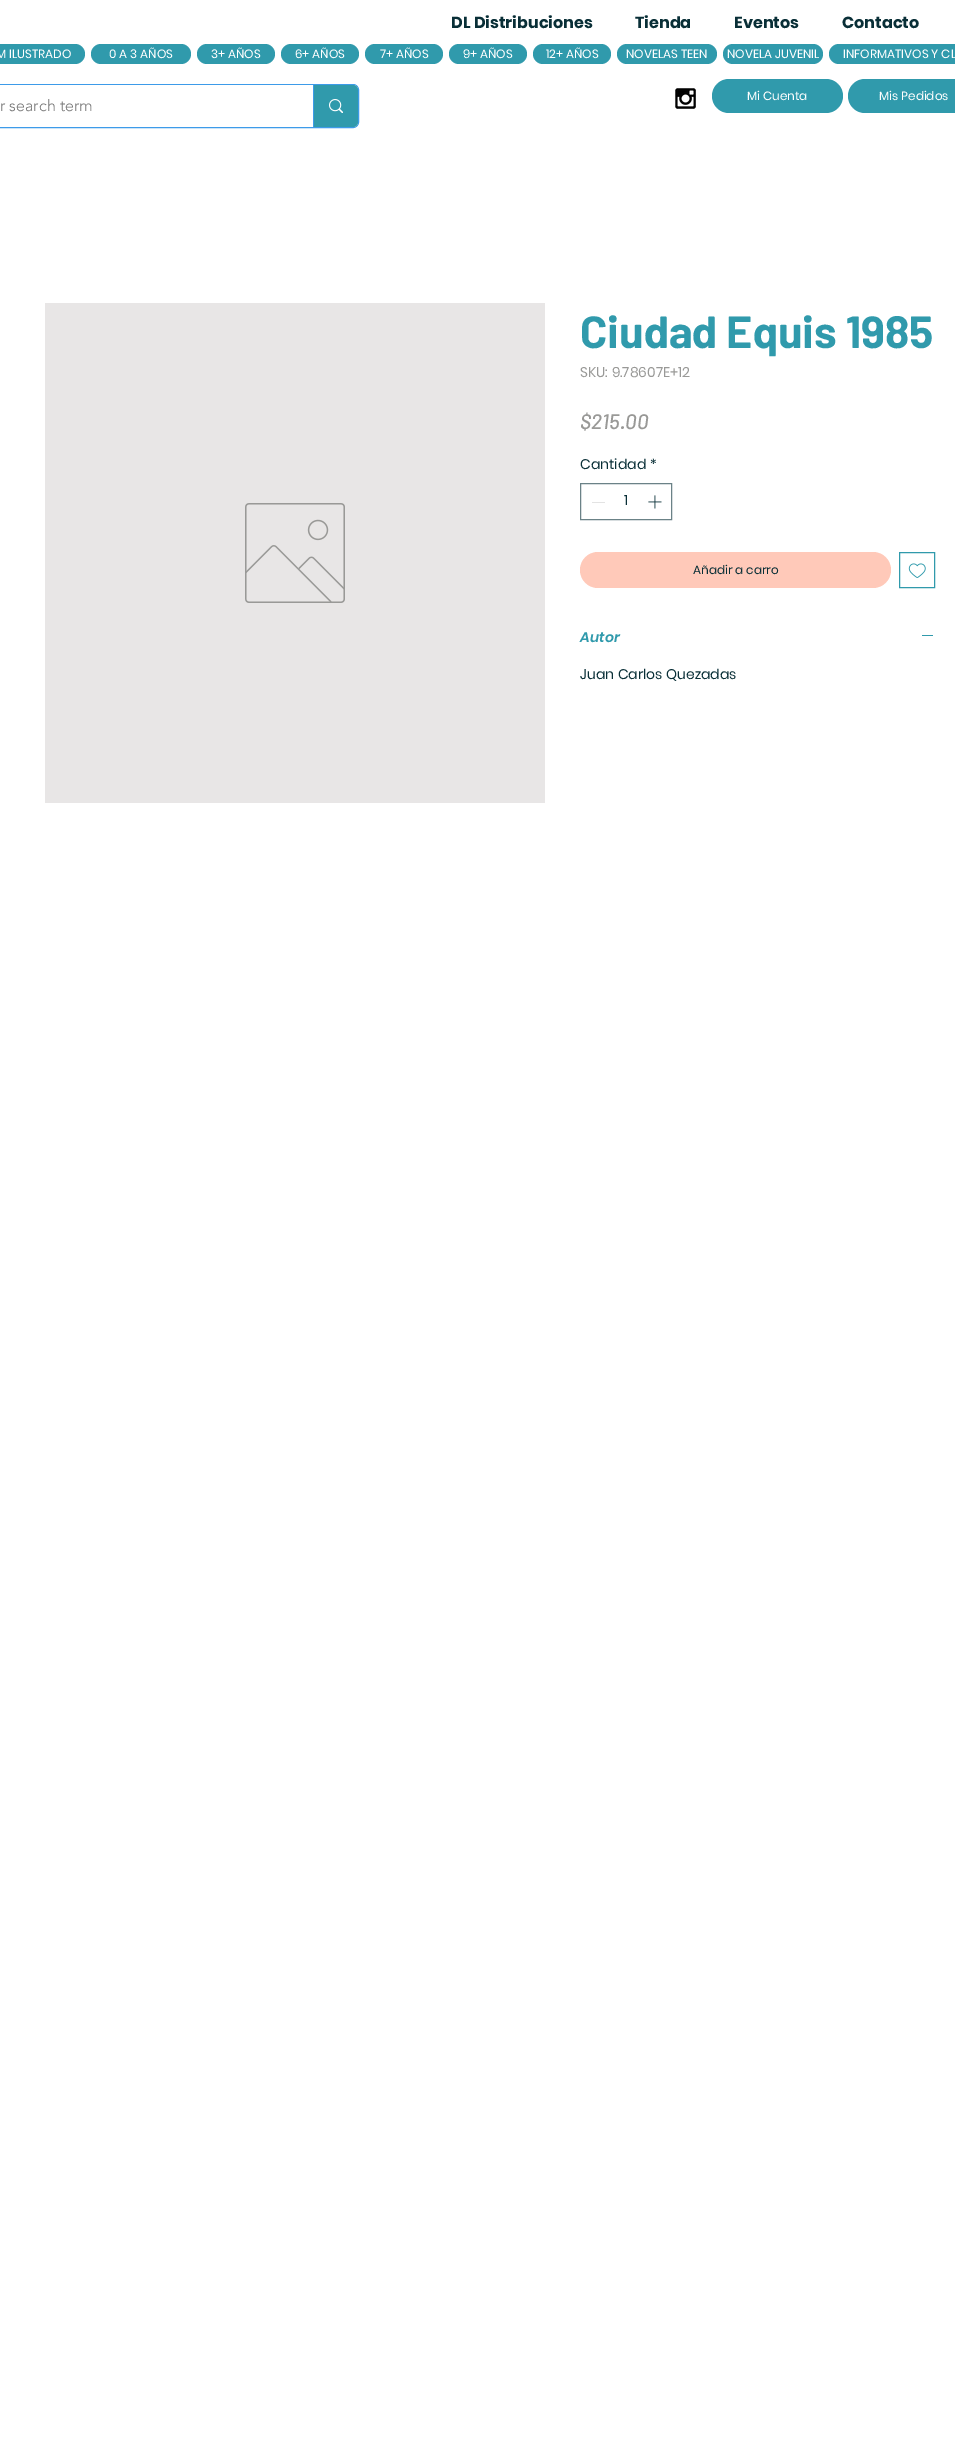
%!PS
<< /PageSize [955 2462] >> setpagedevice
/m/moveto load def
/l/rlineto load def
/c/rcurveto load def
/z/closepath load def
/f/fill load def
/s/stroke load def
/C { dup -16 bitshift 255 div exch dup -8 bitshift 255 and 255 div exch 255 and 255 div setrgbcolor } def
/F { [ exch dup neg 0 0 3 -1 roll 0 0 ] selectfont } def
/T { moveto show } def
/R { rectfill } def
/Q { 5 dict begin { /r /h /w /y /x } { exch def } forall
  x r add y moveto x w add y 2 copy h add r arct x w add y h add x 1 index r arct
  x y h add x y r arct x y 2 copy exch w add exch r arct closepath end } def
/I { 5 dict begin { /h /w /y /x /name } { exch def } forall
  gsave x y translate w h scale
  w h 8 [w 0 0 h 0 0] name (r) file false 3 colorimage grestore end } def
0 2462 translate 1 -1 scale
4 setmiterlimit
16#FFFFFF C
0 0 955 2462 R
/Poppins-Bold 16 F
16#092F37 C
(DL Distribuciones) 451 28 T
(Tienda) 635 28 T
(Eventos) 734 28 T
(Contacto) 842 28 T
16#309AAC C
-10 44 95 20 10 Q f
/Poppins-Regular 12 F
16#FFFFFF C
(M ILUSTRADO) -4 58 T
16#309AAC C
91 44 100 20 10 Q f
16#FFFFFF C
(0 A 3 AÑOS) 109 58 T
16#309AAC C
197 44 78 20 10 Q f
16#FFFFFF C
(3+ AÑOS) 211 58 T
16#309AAC C
281 44 78 20 10 Q f
16#FFFFFF C
(6+ AÑOS) 295 58 T
16#309AAC C
365 44 78 20 10 Q f
16#FFFFFF C
(7+ AÑOS) 380 58 T
16#309AAC C
449 44 78 20 10 Q f
16#FFFFFF C
(9+ AÑOS) 463 58 T
16#309AAC C
533 44 78 20 10 Q f
16#FFFFFF C
(12+ AÑOS) 546 58 T
16#309AAC C
617 44 100 20 10 Q f
16#FFFFFF C
(NOVELAS TEEN) 626 58 T
16#309AAC C
723 44 100 20 10 Q f
16#FFFFFF C
(NOVELA JUVENIL) 727 58 T
16#309AAC C
829 44 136 20 10 Q f
16#FFFFFF C
(INFORMATIVOS Y CL) 843 58 T
(1.rgb) 675 88 21 21 I
16#309AAC C
712 79 131 34 17 Q f
16#FFFFFF C
(Mi Cuenta) 747 100 T
16#309AAC C
848 79 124 34 17 Q f
16#FFFFFF C
(Mis Pedidos) 879 100 T
16#3D9BE9 C
-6.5 84.5 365 43 5.5 Q s
16#FFFFFF C
-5 85 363 42 5 Q f
/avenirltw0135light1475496-Light 16 F
16#787878 C
(r search term) 0 111 T
16#309AAC C
313 85 m 40 0 l 3 0 5 2 5 5 c 0 32 l 0 3 -2 5 -5 5 c -40 0 l z f
16#3D9BE9 C
313 85 1 42 R
(2.rgb) 329 99 14 14 I
16#E8E6E6 C
45 303 500 500 R
(3.rgb) 245 503 100 100 I
/Barlow-Bold 45 F
16#309AAC C
(Ciudad Equis 1985) 580 348 T
/Poppins-Regular 14 F
16#999997 C
(SKU: 9.78607E+12) 580 377 T
/Barlow-MediumItalic 21 F
($215.00) 580 429 T
/Poppins-Regular 14 F
16#092F37 C
(Cantidad) 580 469 T
(*) 650 469 T
16#6B8287 C
580.5 483.5 91 36 rectstroke
16#E3E3E3 C
592 502 13 1 R
16#092F37 C
(1) 624 505 T
(4.rgb) 648 495 14 14 I
16#FFC9B9 C
580 552 311 36 18 Q f
/Poppins-Regular 12 F
16#092F37 C
(Añadir a carro) 693 574 T
16#309AAC C
899.5 552.5 35 35 rectstroke
(5.rgb) 908 563 18 15 I
/Poppins-SemiBoldItalic 14 F
(Autor) 580 642 T
922 635 11 1 R
/Poppins-Regular 14 F
16#092F37 C
(Juan Carlos Quezadas) 580 679 T
showpage
